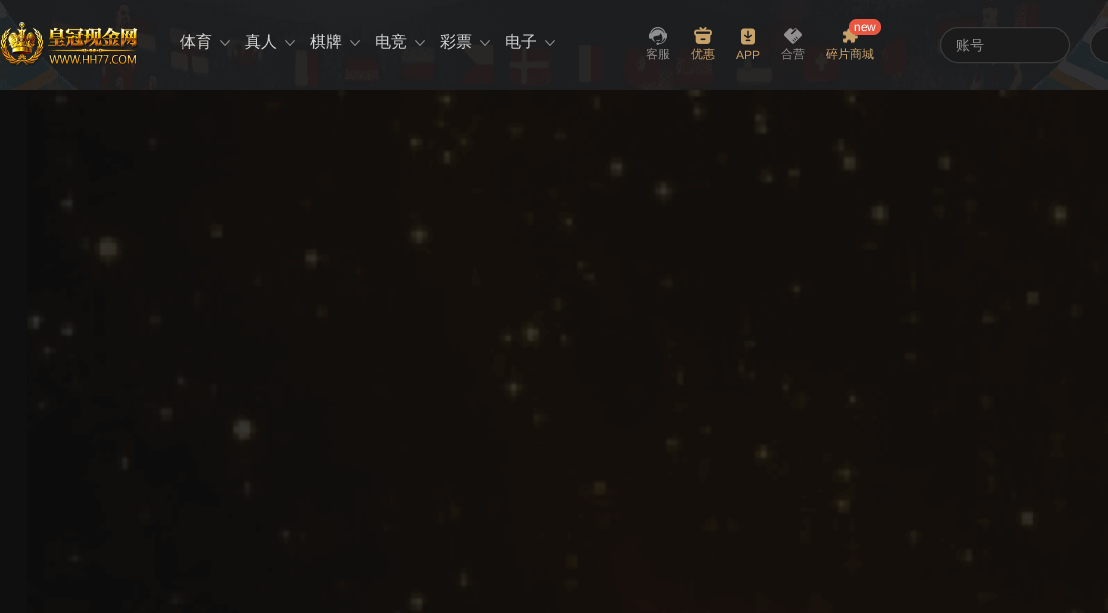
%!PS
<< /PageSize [1108 613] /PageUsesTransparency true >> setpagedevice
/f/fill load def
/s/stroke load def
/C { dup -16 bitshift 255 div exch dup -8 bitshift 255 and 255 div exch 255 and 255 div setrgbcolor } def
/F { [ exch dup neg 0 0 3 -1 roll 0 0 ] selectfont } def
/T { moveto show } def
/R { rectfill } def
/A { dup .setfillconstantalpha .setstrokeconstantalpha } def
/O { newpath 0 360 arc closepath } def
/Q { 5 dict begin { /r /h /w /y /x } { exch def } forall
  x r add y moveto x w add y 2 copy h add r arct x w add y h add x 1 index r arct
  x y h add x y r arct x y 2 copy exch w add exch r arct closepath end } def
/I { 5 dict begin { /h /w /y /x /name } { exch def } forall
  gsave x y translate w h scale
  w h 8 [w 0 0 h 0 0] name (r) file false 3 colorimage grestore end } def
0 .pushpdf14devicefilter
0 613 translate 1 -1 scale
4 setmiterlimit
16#0F0F0F C
0 0 1108 613 R
16#1B1B1B C
0 0 1108 90 R
(1.rgb) 0 0 1108 90 I
(2.rgb) 0 22 138 44 I
/WenQuanYiZenHei-Medium 16 F
16#D3D3D3 C
(体育) 180 47 T
(3.rgb) 220 40 10 6 I
(真人) 245 47 T
(4.rgb) 285 40 10 6 I
(棋牌) 310 47 T
(5.rgb) 350 40 10 6 I
(电竞) 375 47 T
(6.rgb) 415 40 10 6 I
(彩票) 440 47 T
(7.rgb) 480 40 10 6 I
(电子) 505 47 T
(8.rgb) 545 40 10 6 I
(9.rgb) 649 27 18 18 I
/WenQuanYiZenHei-Medium 12 F
16#908E8F C
(客服) 646 58 T
(10.rgb) 694 27 18 17 I
16#C9A269 C
(优惠) 691 58 T
(11.rgb) 741 28 14 17 I
/LiberationSans-Regular 12 F
(APP) 736 59 T
(12.rgb) 784 28 18 16 I
/WenQuanYiZenHei-Medium 12 F
16#908E8F C
(合营) 781 58 T
(13.rgb) 843 28 15 16 I
16#EB5641 C
849 19 32 16 8 Q f
/LiberationSans-Regular 12 F
16#FFFFFF C
(new) 854 31 T
/WenQuanYiZenHei-Medium 12 F
16#C9A269 C
(碎片商城) 826 58 T
16#1B1B1B C
940 27 130 36 18 Q f
0.15 A
16#E5E5E5 C
940.5 27.5 129 35 17.5 Q s
/WenQuanYiZenHei-Medium 14 F
1 A
16#908E8F C
(账号) 956 50 T
16#1B1B1B C
1108 45 18 O f
0.15 A
16#E5E5E5 C
1090.5 27.5 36 35 17.5 Q s
1 A
(14.rgb) 27 90 1081 523 I
.poppdf14devicefilter showpage
